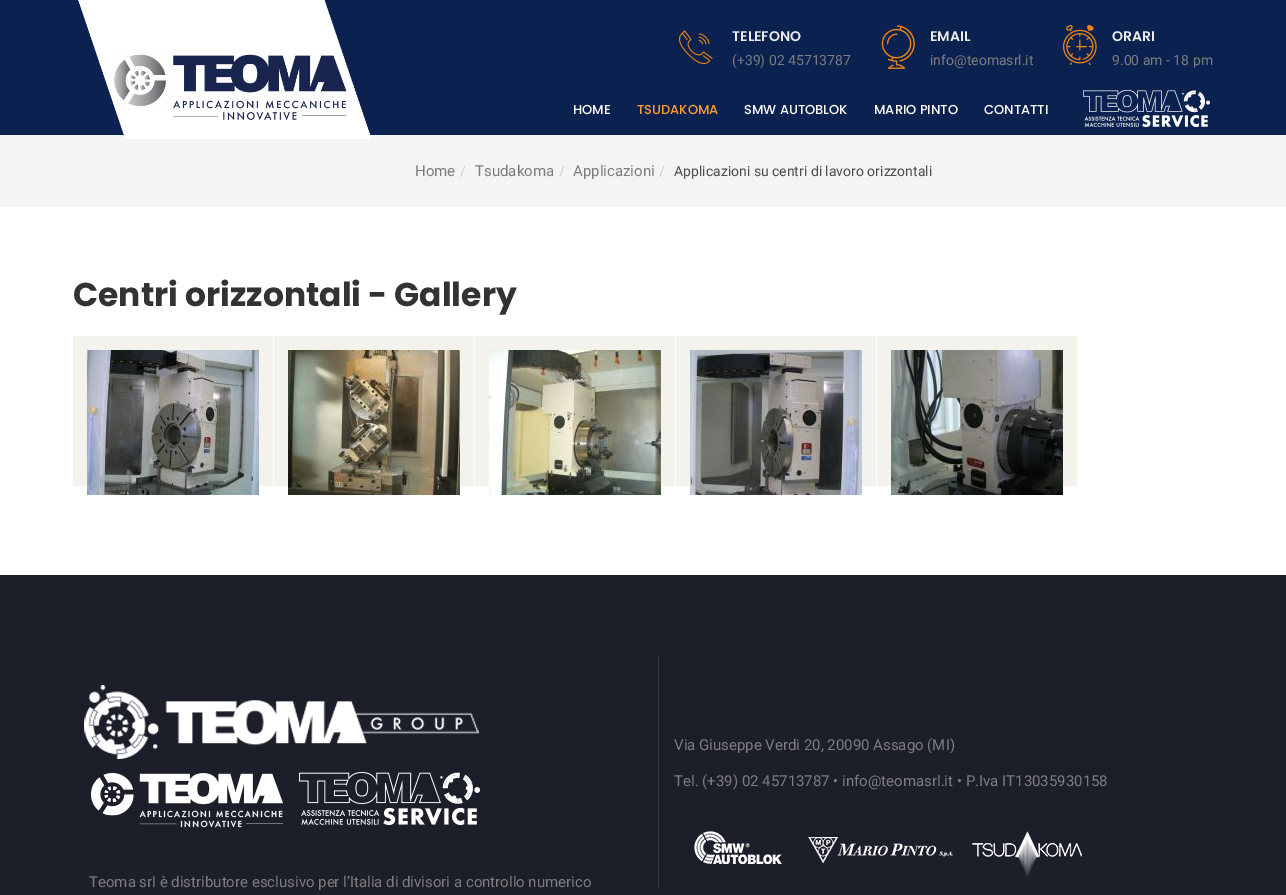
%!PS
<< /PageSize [1286 895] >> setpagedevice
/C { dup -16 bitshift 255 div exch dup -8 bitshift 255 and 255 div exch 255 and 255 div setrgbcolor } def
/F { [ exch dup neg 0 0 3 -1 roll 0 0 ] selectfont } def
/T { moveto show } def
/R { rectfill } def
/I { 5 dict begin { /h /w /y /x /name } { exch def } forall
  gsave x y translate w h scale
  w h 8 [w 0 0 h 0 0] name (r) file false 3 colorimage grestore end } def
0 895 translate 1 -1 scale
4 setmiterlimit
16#FFFFFF C
0 0 1286 895 R
16#0B2250 C
0 0 1286 135 R
16#F4F4F4 C
0 135 1286 72 R
(1.rgb) 78 0 293 139 I
(2.rgb) 679 30 34 34 I
/Poppins-SemiBold 14 F
16#EBEBEB C
(TELEFONO) 732 41 T
/Roboto-Regular 14 F
16#7D7D7D C
(\(+39\) 02 45713787) 732 65 T
(3.rgb) 881 25 34 44 I
/Poppins-SemiBold 14 F
16#EBEBEB C
(EMAIL) 930 41 T
/Roboto-Regular 14 F
16#7D7D7D C
(info@teomasrl.it) 930 65 T
(4.rgb) 1063 25 34 40 I
/Poppins-SemiBold 14 F
16#EBEBEB C
(ORARI) 1112 41 T
/Roboto-Regular 14 F
16#7D7D7D C
(9.00 am - 18 pm) 1112 65 T
/Poppins-Medium 13 F
16#FFFFFF C
(HOME) 573 114 T
16#FF9C33 C
(TSUDAKOMA) 637 114 T
16#FFFFFF C
(SMW AUTOBLOK) 744 114 T
(MARIO PINTO) 874 114 T
(CONTATTI) 984 114 T
(5.rgb) 1083 90 127 37 I
/Roboto-Regular 15 F
16#7D7D7D C
(Home) 415 176 T
/Roboto-Regular 14 F
16#CCCCCC C
(/) 460 176 T
/Roboto-Regular 15 F
16#7D7D7D C
(Tsudakoma) 475 176 T
/Roboto-Regular 14 F
16#CCCCCC C
(/) 559 176 T
/Roboto-Regular 15 F
16#7D7D7D C
(Applicazioni) 573 176 T
/Roboto-Regular 14 F
16#CCCCCC C
(/) 659 176 T
16#4E4D4D C
(Applicazioni su centri di lavoro orizzontali) 674 176 T
/Poppins-Bold 33 F
16#333333 C
(Centri orizzontali - Gallery) 73 306 T
16#F4F2ED C
73 336 200 150 R
(6.rgb) 87 350 172 145 I
274 336 200 150 R
(7.rgb) 288 350 172 145 I
475 336 200 150 R
(8.rgb) 489 350 172 145 I
676 336 200 150 R
(9.rgb) 690 350 172 145 I
877 336 200 150 R
(10.rgb) 891 350 172 145 I
16#1C1F2A C
0 575 1286 320 R
16#33353F C
658 655 1 234 R
/Roboto-Regular 15 F
16#7D7D7D C
(Via Giuseppe Verdi 20, 20090 Assago \(MI\)) 674 750 T
(Tel. \(+39\) 02 45713787 • info@teomasrl.it • P.Iva IT13035930158) 674 786 T
(11.rgb) 694 831 388 46 I
(12.rgb) 84 685 396 143 I
(Teoma srl è distributore esclusivo per l’Italia di divisori a controllo numerico) 89 887 T
showpage
